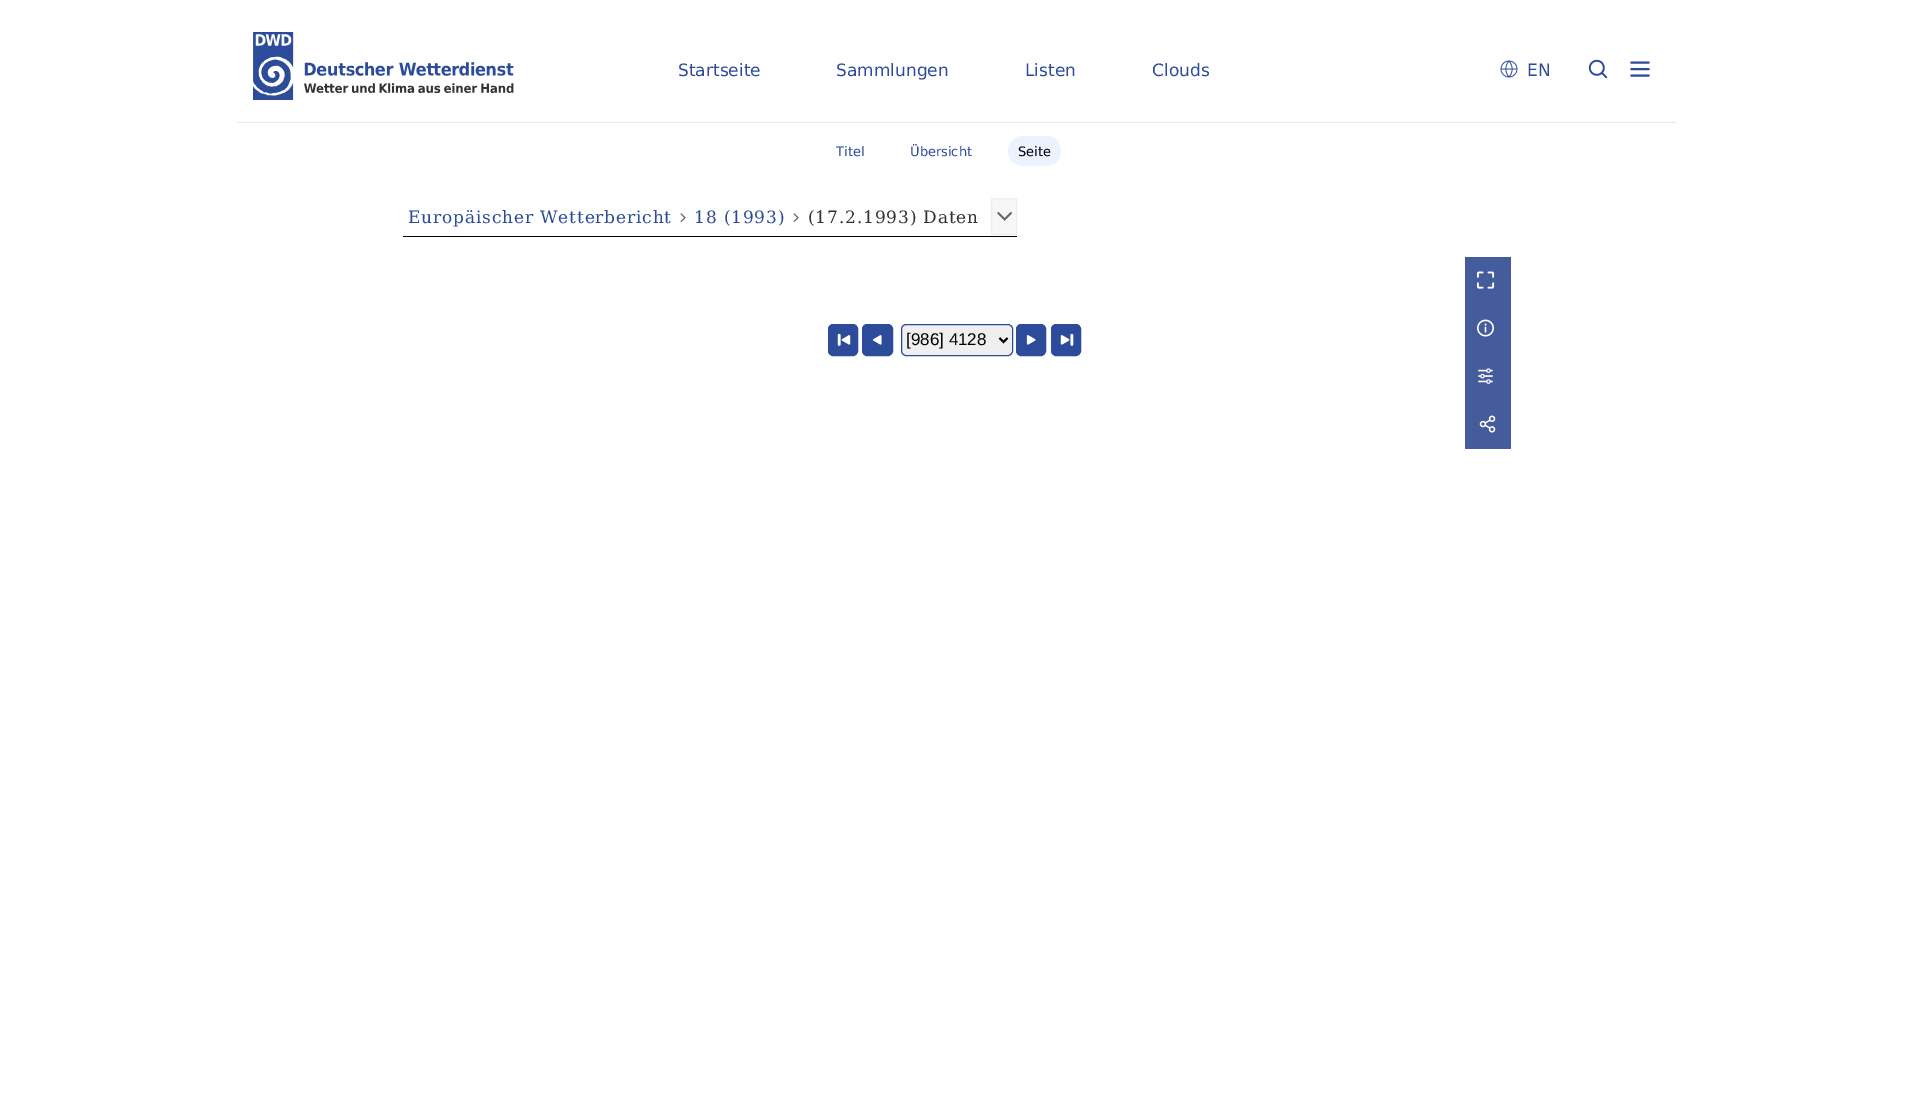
%!PS
<< /PageSize [1913 1119] >> setpagedevice
/m/moveto load def
/l/rlineto load def
/f/fill load def
/s/stroke load def
/q/gsave load def
/Q_/grestore load def
/w/setlinewidth load def
/C { dup -16 bitshift 255 div exch dup -8 bitshift 255 and 255 div exch 255 and 255 div setrgbcolor } def
/F { [ exch dup neg 0 0 3 -1 roll 0 0 ] selectfont } def
/T { moveto show } def
/R { rectfill } def
/Q { 5 dict begin { /r /h /w /y /x } { exch def } forall
  x r add y moveto x w add y 2 copy h add r arct x w add y h add x 1 index r arct
  x y h add x y r arct x y 2 copy exch w add exch r arct closepath end } def
/I { 5 dict begin { /h /w /y /x /name } { exch def } forall
  gsave x y translate w h scale
  w h 8 [w 0 0 h 0 0] name (r) file false 3 colorimage grestore end } def
0 1119 translate 1 -1 scale
4 setmiterlimit
16#FFFFFF C
0 0 1913 1119 R
16#E8E8E8 C
237 122 1440 1 R
(1.rgb) 253 32 261 68 I
/DejaVuSans-Regular 17 F
16#2D4B9B C
(Startseite) 678 76 T
(Sammlungen) 836 76 T
(Listen) 1025 76 T
(Clouds) 1152 76 T
(2.rgb) 1500 60 18 18 I
(EN) 1527 76 T
(3.rgb) 1588 59 20 20 I
2.1 w
1 setlinecap
1 setlinejoin
1631.5 69 m 17 0 l 1631.5 62.5 m 17 0 l 1631.5 75.5 m 17 0 l s
/DejaVuSans-Regular 13 F
(Titel) 836 156 T
(Übersicht) 910 156 T
16#EDF2FF C
1008 136 53 30 15 Q f
16#000000 C
(Seite) 1018 156 T
403 236 614 1 R
/DejaVuSerif-Regular 17 F
16#2D4B9B C
408 223 m .85 0 (Europäischer Wetterbericht) ashow
(4.rgb) 680 213 6 9 I
694 223 m .85 0 (18 \(1993\)) ashow
(4.rgb) 793 213 6 9 I
16#333333 C
808 223 m .85 0 (\(17.2.1993\) Daten) ashow
16#F7F7F8 C
991.5 198.5 25 36 1.5 Q q f Q_
16#EEEEEE C
1 w
0 setlinecap
0 setlinejoin
s
(5.rgb) 997 212 15 9 I
16#2D4B9B C
828.5 324.5 29 31 4.5 Q q f Q_
s
(6.rgb) 837 333 14 13 I
862.5 324.5 30 31 4.5 Q q f Q_
s
(7.rgb) 873 335 9 10 I
16#EFEFEF C
901.5 324.5 111 31 4.5 Q q f Q_
16#2D4B9B C
s
16#000000 C
2 w
999.5 338 m 4 4 l 4 -4 l s
/LiberationSans-Regular 17 F
([986] 4128) 906 345 T
16#2D4B9B C
1016.5 324.5 29 31 4.5 Q q f Q_
1 w
s
(8.rgb) 1026 335 10 10 I
1051.5 324.5 29 31 4.5 Q q f Q_
s
(9.rgb) 1060 333 14 13 I
16#445B9C C
1465 257 46 192 R
(10.rgb) 1477 271 18 18 I
(11.rgb) 1477 319 17 18 I
(12.rgb) 1478 368 15 16 I
(13.rgb) 1479 415 17 18 I
showpage
